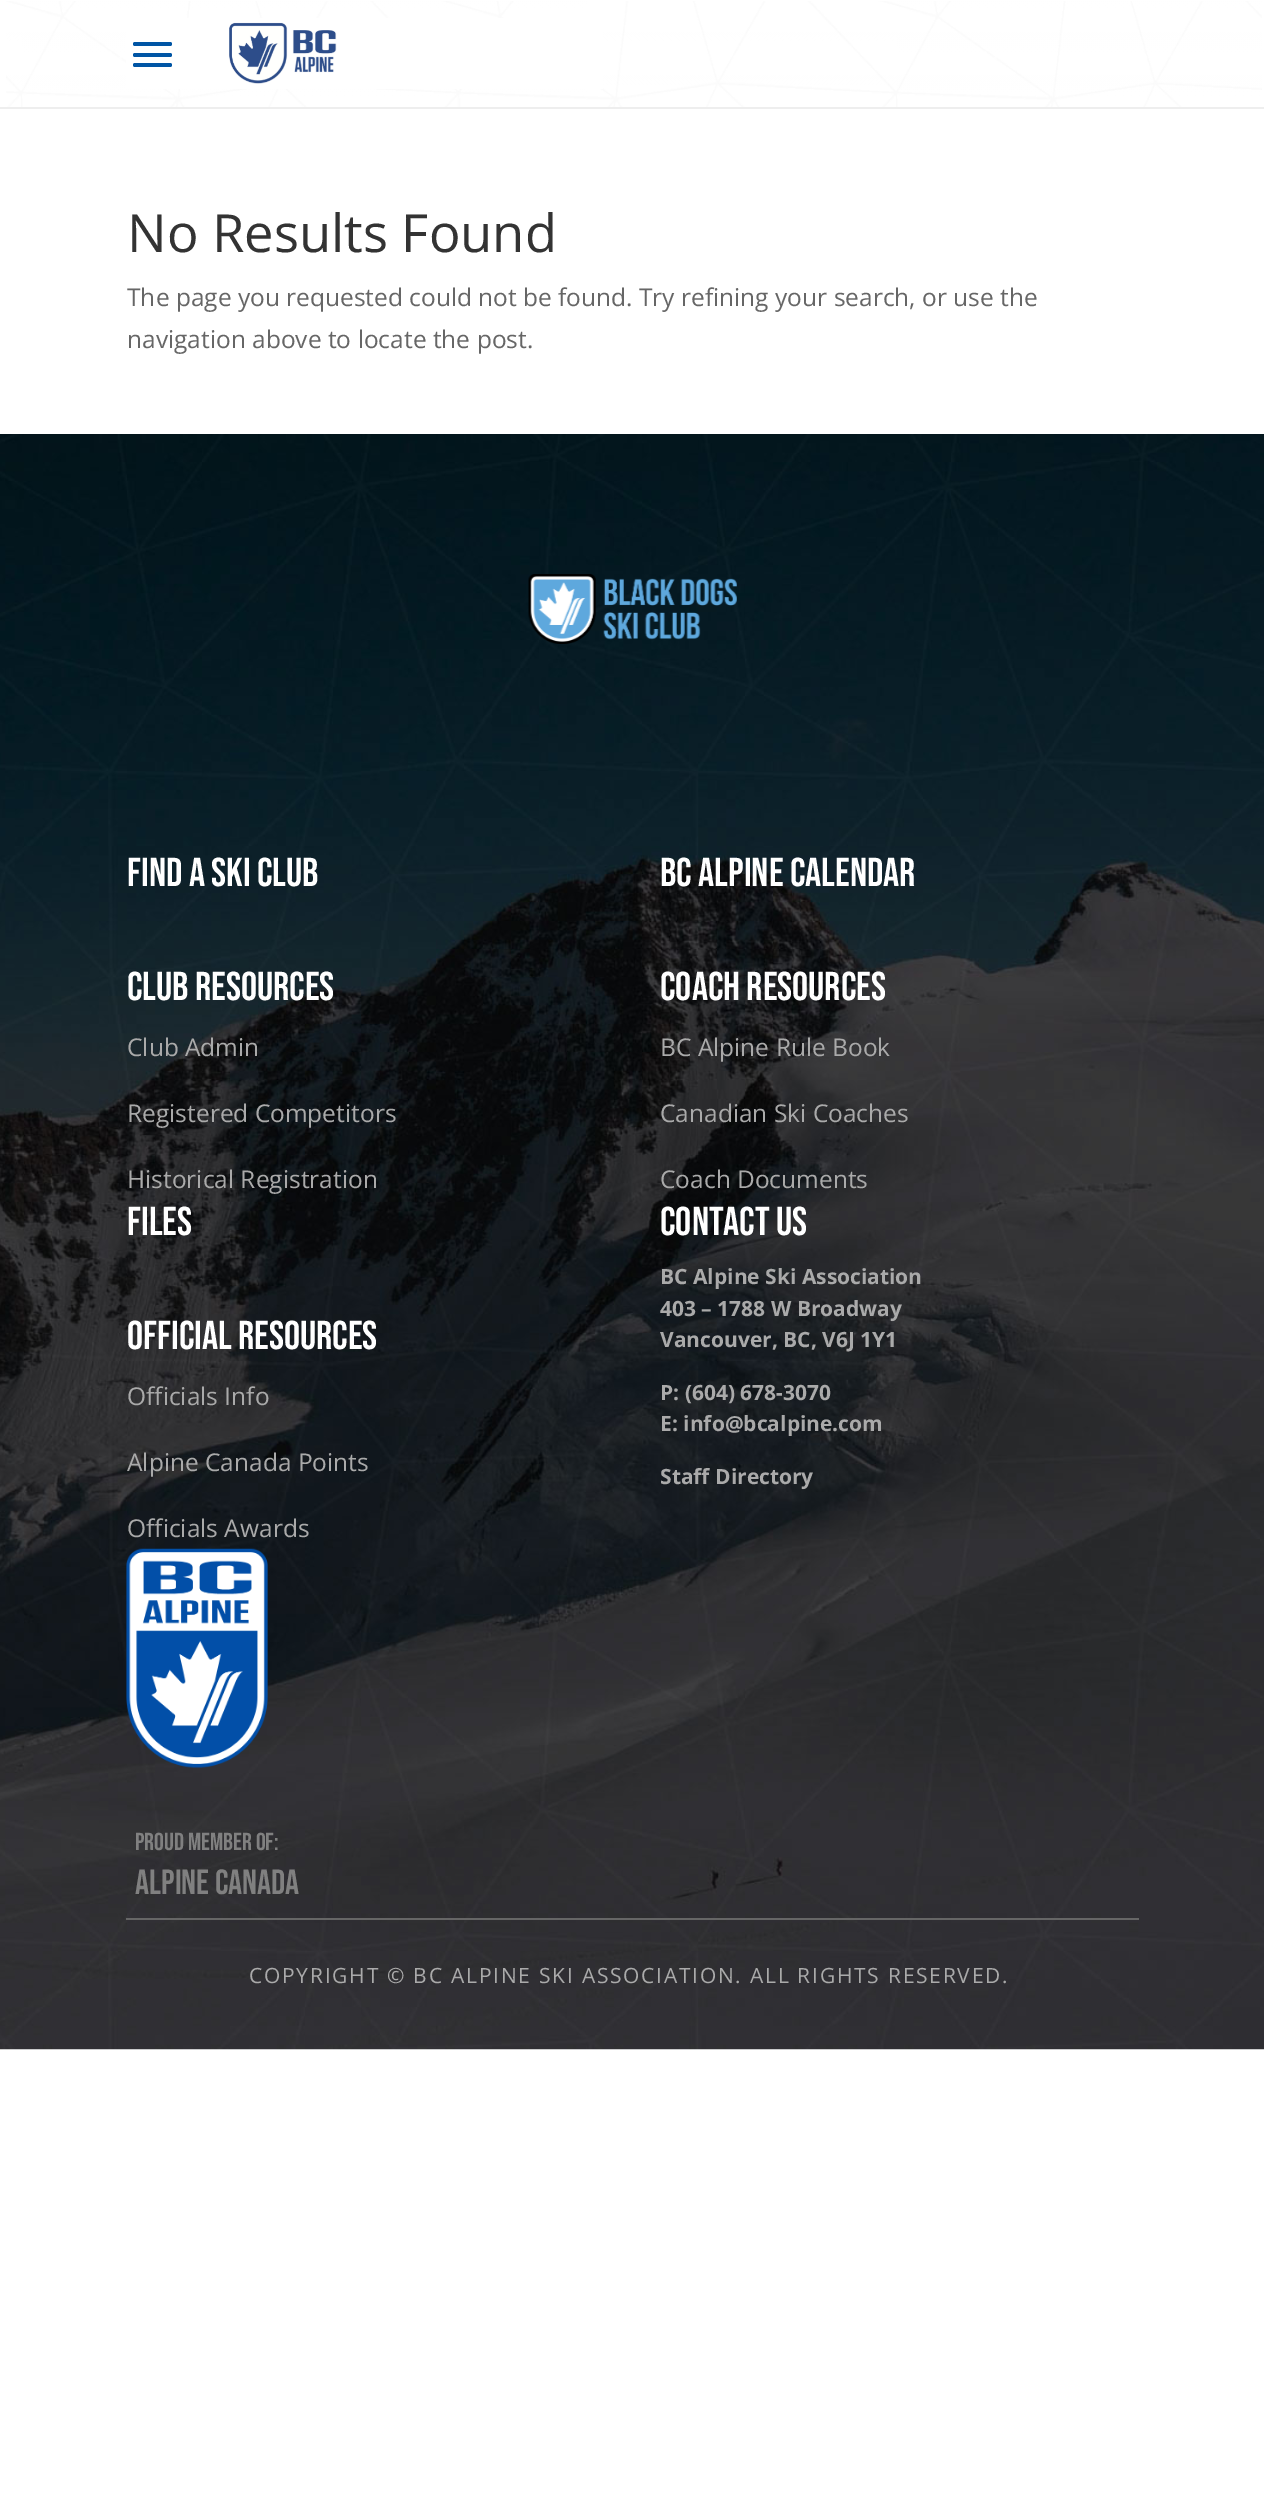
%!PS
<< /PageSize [1264 2508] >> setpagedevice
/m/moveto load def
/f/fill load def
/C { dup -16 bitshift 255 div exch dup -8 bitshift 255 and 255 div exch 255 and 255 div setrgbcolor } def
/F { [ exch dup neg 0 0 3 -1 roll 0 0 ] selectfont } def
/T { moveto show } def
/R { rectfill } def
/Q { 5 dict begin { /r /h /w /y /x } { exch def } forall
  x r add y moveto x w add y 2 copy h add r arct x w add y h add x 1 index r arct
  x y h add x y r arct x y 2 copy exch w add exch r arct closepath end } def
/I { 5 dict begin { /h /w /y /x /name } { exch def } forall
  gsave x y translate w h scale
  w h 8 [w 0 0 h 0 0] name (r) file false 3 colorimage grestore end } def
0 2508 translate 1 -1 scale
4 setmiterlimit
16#FFFFFF C
0 0 1264 2508 R
(1.rgb) 6 1 1256 106 I
16#EEEEEE C
0 107 1264 2 R
16#FFFFFF C
126 18 477 71 R
16#0055A5 C
133 42 39 4 2 Q f
133 53 39 4 2 Q f
133 63 39 4 2 Q f
(2.rgb) 229 22 108 62 I
/OpenSans-Regular 52.5 F
16#333333 C
(No Results Found) 127 252 T
/OpenSans-Regular 24.5 F
16#666666 C
(The page you requested could not be found. Try refining your search, or use the) 127 306 T
(navigation above to locate the post.) 127 348 T
(3.rgb) 0 434 1264 1616 I
(4.rgb) 528 574 209 70 I
/BebasNeue-Regular 40.25 F
16#FFFFFF C
(FIND A SKI CLUB) 127 886 T
(Club Resources) 127 1000 T
/OpenSans-Regular 24.5 F
16#AAAAAA C
(Club Admin) 127 1056 T
(Registered Competitors) 127 1122 T
(Historical Registration) 127 1188 T
/BebasNeue-Regular 40.25 F
16#FFFFFF C
(BC Alpine Calendar) 660 886 T
(Coach Resources) 660 1000 T
/OpenSans-Regular 24.5 F
16#AAAAAA C
(BC Alpine Rule Book) 660 1056 T
(Canadian Ski Coaches) 660 1122 T
(Coach Documents) 660 1188 T
/BebasNeue-Regular 40.25 F
16#FFFFFF C
(FILES) 127 1235 T
(Official Resources) 127 1349 T
/OpenSans-Regular 24.5 F
16#AAAAAA C
(Officials Info) 127 1405 T
(Alpine Canada Points) 127 1471 T
(Officials Awards) 127 1537 T
/BebasNeue-Regular 40.25 F
16#FFFFFF C
(Contact Us) 660 1235 T
/OpenSans-Bold 21 F
16#AAAAAA C
(BC Alpine Ski Association) 660 1284 T
(403 – 1788 W Broadway) 660 1316 T
(Vancouver, BC, V6J 1Y1) 660 1347 T
(P: \(604\) 678-3070) 660 1400 T
(E: info@bcalpine.com) 660 1431 T
(Staff Directory) 660 1484 T
(5.rgb) 126 1548 142 220 I
/BebasNeue-Regular 24.5 F
16#808080 C
(Proud Member of:) 135 1850 T
/BebasNeue-Regular 35 F
(Alpine canada) 135 1894 T
16#666666 C
126 1918 1013 2 R
/OpenSans-Regular 21 F
16#AAAAAA C
249 1983 m 1.75 0 (COPYRIGHT © BC ALPINE SKI ASSOCIATION. ALL RIGHTS RESERVED.) ashow
showpage
